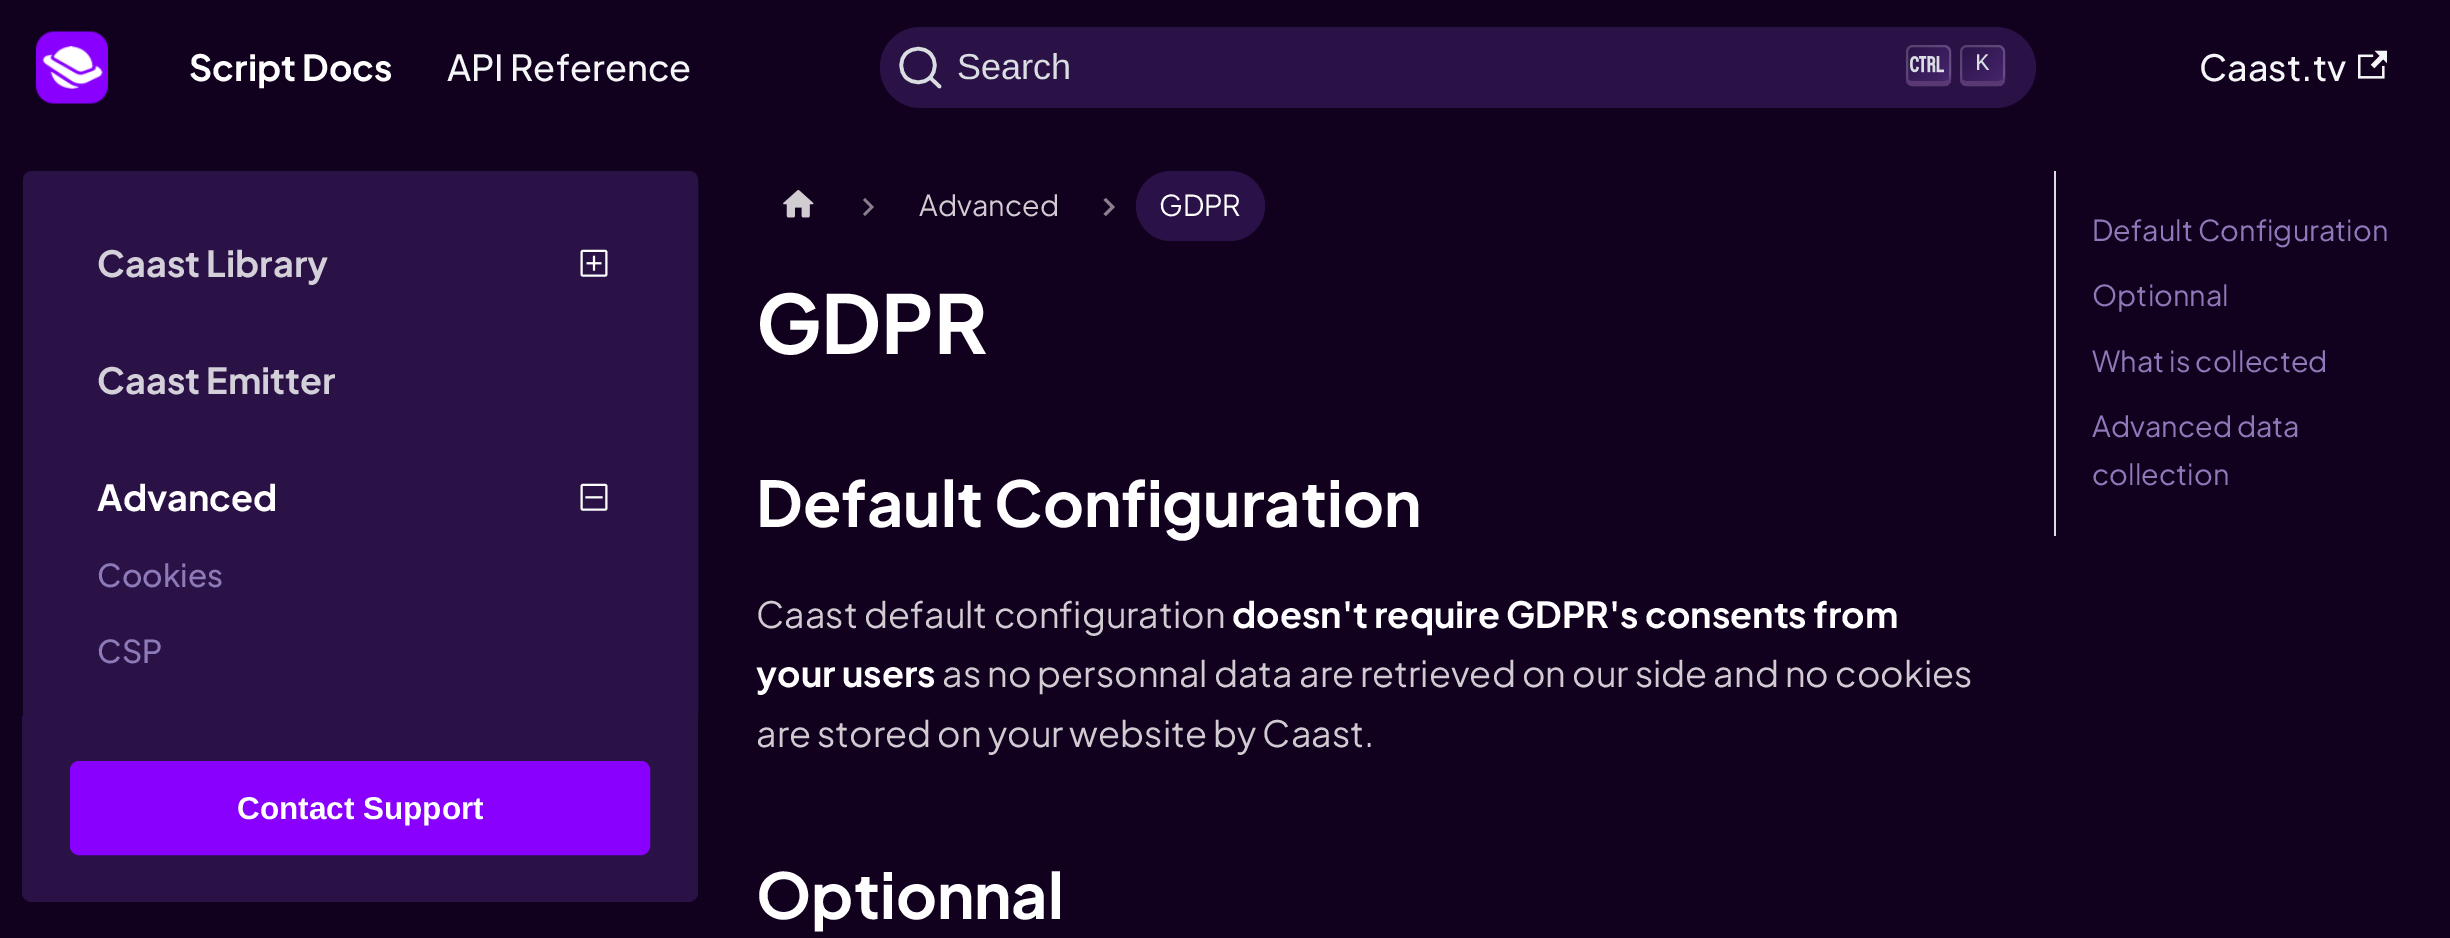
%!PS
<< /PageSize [2450 938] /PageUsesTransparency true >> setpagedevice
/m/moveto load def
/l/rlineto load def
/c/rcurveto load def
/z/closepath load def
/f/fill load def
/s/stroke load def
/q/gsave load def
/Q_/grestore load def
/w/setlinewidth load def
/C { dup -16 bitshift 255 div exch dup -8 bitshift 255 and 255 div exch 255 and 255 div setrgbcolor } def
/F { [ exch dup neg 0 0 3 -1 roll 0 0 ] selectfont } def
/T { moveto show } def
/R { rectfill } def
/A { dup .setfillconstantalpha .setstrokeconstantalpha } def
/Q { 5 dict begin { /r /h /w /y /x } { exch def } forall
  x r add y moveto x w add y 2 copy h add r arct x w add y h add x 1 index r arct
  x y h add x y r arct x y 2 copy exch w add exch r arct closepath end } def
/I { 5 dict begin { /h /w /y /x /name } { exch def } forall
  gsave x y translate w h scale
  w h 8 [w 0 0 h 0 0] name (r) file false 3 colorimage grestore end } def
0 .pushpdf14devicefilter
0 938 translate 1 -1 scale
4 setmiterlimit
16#12001F C
0 0 2450 938 R
(1.rgb) 36 31 72 73 I
/PlusJakartaSans-Bold 36 F
16#FFFFFF C
(Script Docs) 189 81 T
/PlusJakartaSans-Medium 36 F
16#F5F6F7 C
(API Reference) 447 81 T
16#2A1247 C
880 27 1156 81 40.5 Q f
16#DADDE1 C
3.6 w
1 setlinecap
1 setlinejoin
930 77.5 m 9.5 9 l -9.5 -9 l -6.5 6.5 -17 6.5 -24 0 c -6.5 -7 -6.5 -17.5 0 -24 c 7 -6.5 17.5 -6.5 24 0 c 6.5 6.5 6.5 17 0 24 c z s
/LiberationSans-Regular 36 F
(Search) 957 79 T
q 1906 45 45 41 7 Q clip newpath
<< /ShadingType 2 /ColorSpace /DeviceRGB /Coords [1907 44 1950 87] /Extend [true true] /Function << /FunctionType 2 /Domain [0 1] /C0 [.165 .071 .278] /C1 [.282 .153 .435] /N 1 >> >> shfill Q_
0.2 A
16#FFFFFF C
2 w
0 setlinecap
0 setlinejoin
1907 46 43 39 6 Q s
1 A
16#593874 C
1906 74 m 0 5 l 0 4 3 7 7 7 c 31 0 l 4 0 7 -3 7 -7 c 0 -5 l 0 4 -3 7 -7 7 c -32 0 l -3 0 -6 -3 -6 -7 c z f
(2.rgb) 1910 56 34 17 I
q 1960 45 45 41 7 Q clip newpath
<< /ShadingType 2 /ColorSpace /DeviceRGB /Coords [1961 44 2004 87] /Extend [true true] /Function << /FunctionType 2 /Domain [0 1] /C0 [.165 .071 .278] /C1 [.282 .153 .435] /N 1 >> >> shfill Q_
0.2 A
16#FFFFFF C
1961 46 43 39 6 Q s
1 A
16#593874 C
1960 74 m 0 5 l 0 4 3 7 7 7 c 31 0 l 4 0 7 -3 7 -7 c 0 -5 l 0 4 -3 7 -7 7 c -32 0 l -3 0 -6 -3 -6 -7 c z f
/LiberationMono-Regular 24 F
16#DADDE1 C
(K) 1975 70 T
/PlusJakartaSans-Medium 36 F
16#F5F6F7 C
(Caast.tv) 2199 81 T
(3.rgb) 2358 50 29 29 I
16#2A1247 C
32 172 m 657 0 l 4.5 0 8 3.5 8 8 c 0 535 l -673 0 l 0 -535 l 0 -4.5 3.5 -8 8 -8 c z q f Q_
s
/PlusJakartaSans-Bold 36 F
16#D4D0DA C
(Caast Library) 97 277 T
(4.rgb) 580 249 28 28 I
(Caast Emitter) 97 394 T
16#FFFFFF C
(Advanced) 97 511 T
(5.rgb) 580 483 28 28 I
/PlusJakartaSans-Medium 31.5 F
16#8D7AB8 C
(Cookies) 97 587 T
(CSP) 97 663 T
16#2A1247 C
25 716 m 670 0 l 0 177 l 0 4 -3 7 -7 7 c -656 0 l -4 0 -7 -3 -7 -7 c z f
22 716 m 676 0 l 0 177 l 0 5 -5 9 -10 9 c -656 0 l -5 0 -10 -4 -10 -9 c z 25 716 m 670 0 l 0 177 l 0 4 -3 7 -7 7 c -656 0 l -4 0 -7 -3 -7 -7 c z eofill
16#8900FF C
71 762 578 92 8 Q q f Q_
s
/LiberationSans-Bold 31.5 F
16#FFFFFF C
(Contact Support) 237 819 T
(6.rgb) 783 190 31 28 I
16#89808F C
865 198 m -2 2 l 7 7 l -7 7 l 2 2 l 9 -9 l z f
/PlusJakartaSans-Regular 28.75 F
16#D0CCD2 C
(Advanced) 919 216 T
16#89808F C
1106 198 m -2.5 2 l 7 7 l -7 7 l 2.5 2 l 9 -9 l z f
16#2A1148 C
1136 171 129 70 35 Q f
16#FFFFFF C
(GDPR) 1159 216 T
/PlusJakartaSans-Bold 81 F
(GDPR) 756 354 T
/PlusJakartaSans-Bold 63 F
(Default Configuration) 756 527 T
/PlusJakartaSans-Regular 36 F
16#D0CCD2 C
(Caast default configuration) 756 628 T
/PlusJakartaSans-Bold 36 F
16#FFFFFF C
(doesn't require GDPR's consents from) 1232 628 T
(your users) 756 687 T
/PlusJakartaSans-Regular 36 F
16#D0CCD2 C
(as no personnal data are retrieved on our side and no cookies) 942 687 T
(are stored on your website by Caast.) 756 747 T
/PlusJakartaSans-Bold 63 F
16#FFFFFF C
(Optionnal) 756 919 T
16#DADDE1 C
2054 171 2 365 R
/PlusJakartaSans-Regular 28.75 F
16#8D7AB8 C
(Default Configuration) 2092 241 T
(Optionnal) 2092 306 T
(What is collected) 2092 372 T
(Advanced data) 2092 437 T
(collection) 2092 485 T
.poppdf14devicefilter showpage
